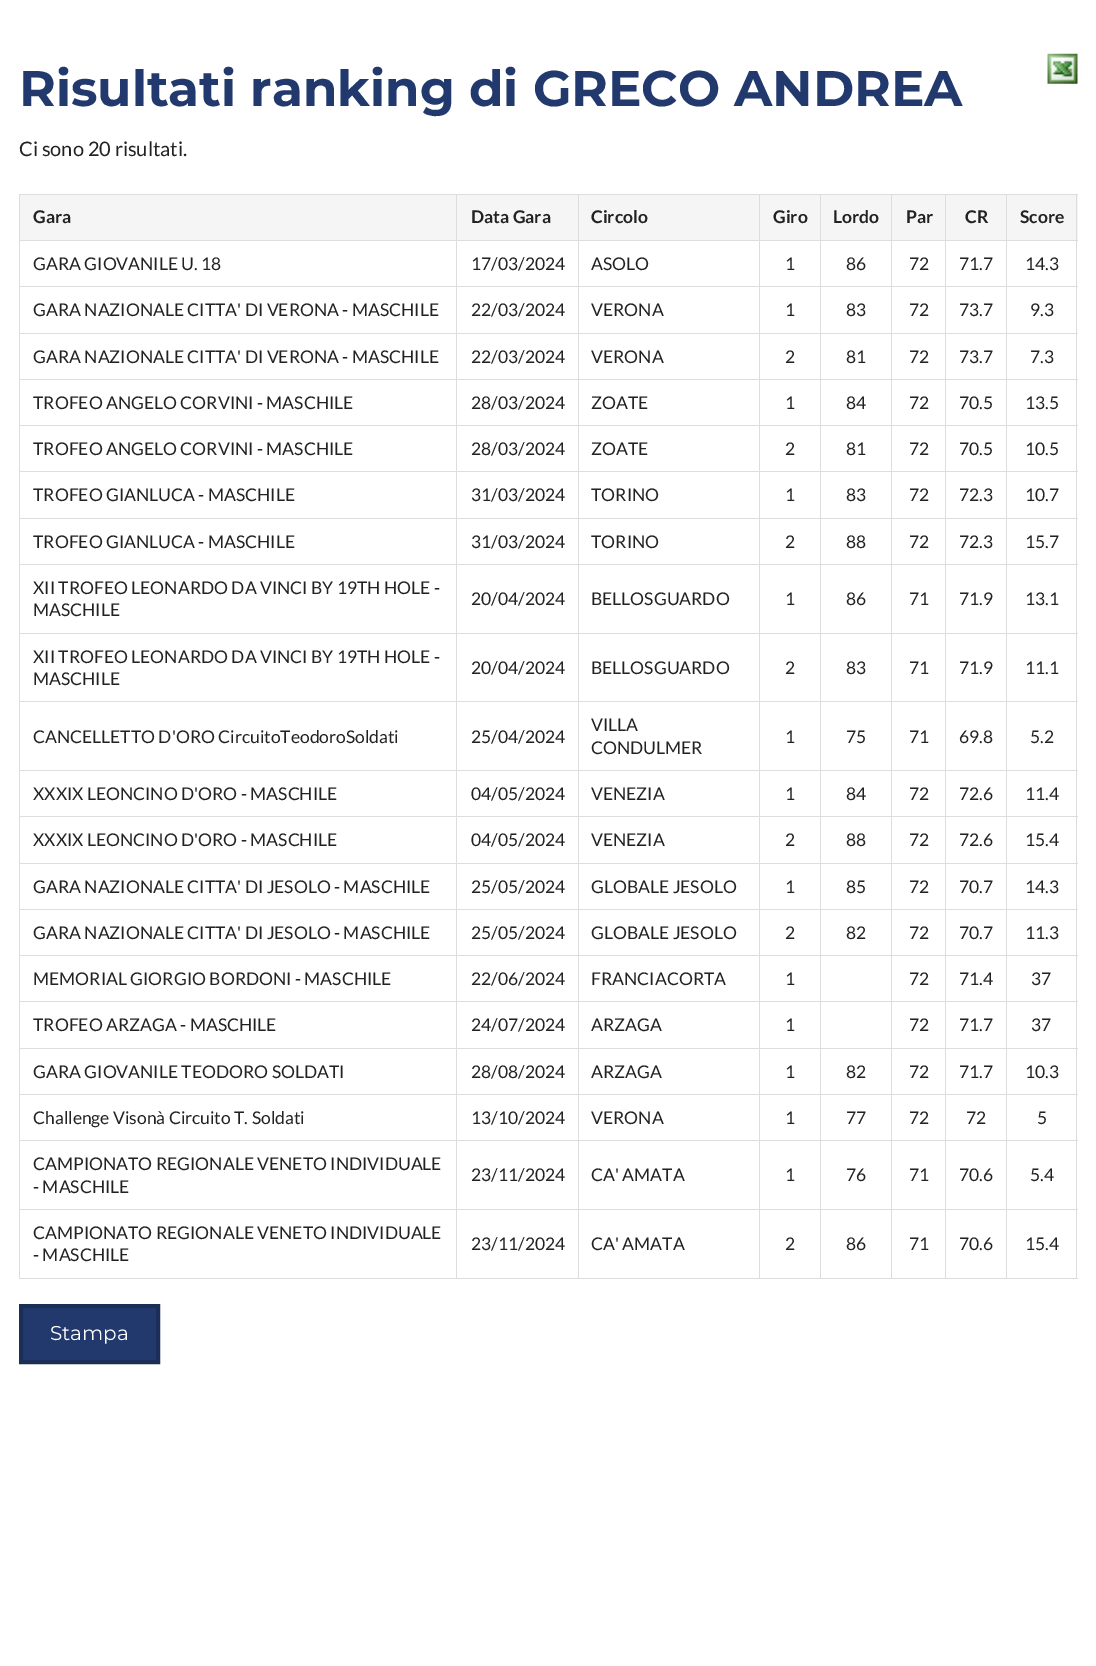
%!PS
<< /PageSize [1096 1666] >> setpagedevice
/m/moveto load def
/l/rlineto load def
/z/closepath load def
/f/fill load def
/s/stroke load def
/q/gsave load def
/Q_/grestore load def
/w/setlinewidth load def
/C { dup -16 bitshift 255 div exch dup -8 bitshift 255 and 255 div exch 255 and 255 div setrgbcolor } def
/F { [ exch dup neg 0 0 3 -1 roll 0 0 ] selectfont } def
/T { moveto show } def
/R { rectfill } def
/I { 5 dict begin { /h /w /y /x /name } { exch def } forall
  gsave x y translate w h scale
  w h 8 [w 0 0 h 0 0] name (r) file false 3 colorimage grestore end } def
0 1666 translate 1 -1 scale
4 setmiterlimit
16#FFFFFF C
0 0 1096 1666 R
/Montserrat-Bold 50 F
16#22396E C
(Risultati ranking di GRECO ANDREA) 19 106 T
(1.rgb) 1047 53 31 31 I
/Lato-Regular 20 F
16#222222 C
(Ci sono 20 risultati.) 19 156 T
16#F5F5F5 C
20 195 1058 45 R
16#DDDDDD C
1006 194 72 1 R
1006 240 72 1 R
1006 286 72 1 R
1006 333 72 1 R
1006 379 72 1 R
1006 425 72 1 R
1006 471 72 1 R
1006 518 72 1 R
1006 564 72 1 R
1006 633 72 1 R
1006 701 72 1 R
1006 770 72 1 R
1006 816 72 1 R
1006 863 72 1 R
1006 909 72 1 R
1006 955 72 1 R
1006 1001 72 1 R
1006 1048 72 1 R
1006 1094 72 1 R
1006 1140 72 1 R
1006 1209 72 1 R
1076 1209 1 70 R
1006 1278 72 1 R
1006 1209 1 70 R
945 1209 63 1 R
1006 1140 1 70 R
945 1140 63 1 R
1006 1094 1 47 R
945 1094 63 1 R
1006 1048 1 47 R
945 1048 63 1 R
1006 1001 1 48 R
945 1001 63 1 R
1006 955 1 48 R
945 955 63 1 R
1006 909 1 47 R
945 909 63 1 R
1006 863 1 47 R
945 863 63 1 R
1006 816 1 48 R
945 816 63 1 R
1006 770 1 48 R
945 770 63 1 R
1006 701 1 70 R
945 701 63 1 R
1006 633 1 70 R
945 633 63 1 R
1006 564 1 70 R
945 564 63 1 R
1006 518 1 47 R
945 518 63 1 R
1006 471 1 48 R
945 471 63 1 R
1006 425 1 48 R
945 425 63 1 R
1006 379 1 47 R
945 379 63 1 R
1006 333 1 47 R
945 333 63 1 R
1006 286 1 48 R
945 286 63 1 R
1006 240 1 48 R
945 240 63 1 R
1006 194 1 47 R
945 194 63 1 R
945 1278 63 1 R
945 1209 1 70 R
891 1209 55 1 R
945 1140 1 70 R
891 1140 55 1 R
945 1094 1 47 R
891 1094 55 1 R
945 1048 1 47 R
891 1048 55 1 R
945 1001 1 48 R
891 1001 55 1 R
945 955 1 48 R
891 955 55 1 R
945 909 1 47 R
891 909 55 1 R
945 863 1 47 R
891 863 55 1 R
945 816 1 48 R
891 816 55 1 R
945 770 1 48 R
891 770 55 1 R
945 701 1 70 R
891 701 55 1 R
945 633 1 70 R
891 633 55 1 R
945 564 1 70 R
891 564 55 1 R
945 518 1 47 R
891 518 55 1 R
945 471 1 48 R
891 471 55 1 R
945 425 1 48 R
891 425 55 1 R
945 379 1 47 R
891 379 55 1 R
945 333 1 47 R
891 333 55 1 R
945 286 1 48 R
891 286 55 1 R
945 240 1 48 R
891 240 55 1 R
945 194 1 47 R
891 194 55 1 R
891 1278 55 1 R
891 1209 1 70 R
820 1209 73 1 R
891 1140 1 70 R
820 1140 73 1 R
891 1094 1 47 R
820 1094 73 1 R
891 1048 1 47 R
820 1048 73 1 R
891 1001 1 48 R
820 1001 73 1 R
891 955 1 48 R
820 955 73 1 R
891 909 1 47 R
820 909 73 1 R
891 863 1 47 R
820 863 73 1 R
891 816 1 48 R
820 816 73 1 R
891 770 1 48 R
820 770 73 1 R
891 701 1 70 R
820 701 73 1 R
891 633 1 70 R
820 633 73 1 R
891 564 1 70 R
820 564 73 1 R
891 518 1 47 R
820 518 73 1 R
891 471 1 48 R
820 471 73 1 R
891 425 1 48 R
820 425 73 1 R
891 379 1 47 R
820 379 73 1 R
891 333 1 47 R
820 333 73 1 R
891 286 1 48 R
820 286 73 1 R
891 240 1 48 R
820 240 73 1 R
891 194 1 47 R
820 194 73 1 R
820 1278 73 1 R
820 1209 1 70 R
759 1209 62 1 R
820 1140 1 70 R
759 1140 62 1 R
820 1094 1 47 R
759 1094 62 1 R
820 1048 1 47 R
759 1048 62 1 R
820 1001 1 48 R
759 1001 62 1 R
820 955 1 48 R
759 955 62 1 R
820 909 1 47 R
759 909 62 1 R
820 863 1 47 R
759 863 62 1 R
820 816 1 48 R
759 816 62 1 R
820 770 1 48 R
759 770 62 1 R
820 701 1 70 R
759 701 62 1 R
820 633 1 70 R
759 633 62 1 R
820 564 1 70 R
759 564 62 1 R
820 518 1 47 R
759 518 62 1 R
820 471 1 48 R
759 471 62 1 R
820 425 1 48 R
759 425 62 1 R
820 379 1 47 R
759 379 62 1 R
820 333 1 47 R
759 333 62 1 R
820 286 1 48 R
759 286 62 1 R
820 240 1 48 R
759 240 62 1 R
820 194 1 47 R
759 194 62 1 R
759 1278 62 1 R
759 1209 1 70 R
578 1209 182 1 R
759 1140 1 70 R
578 1140 182 1 R
759 1094 1 47 R
578 1094 182 1 R
759 1048 1 47 R
578 1048 182 1 R
759 1001 1 48 R
578 1001 182 1 R
759 955 1 48 R
578 955 182 1 R
759 909 1 47 R
578 909 182 1 R
759 863 1 47 R
578 863 182 1 R
759 816 1 48 R
578 816 182 1 R
759 770 1 48 R
578 770 182 1 R
759 701 1 70 R
578 701 182 1 R
759 633 1 70 R
578 633 182 1 R
759 564 1 70 R
578 564 182 1 R
759 518 1 47 R
578 518 182 1 R
759 471 1 48 R
578 471 182 1 R
759 425 1 48 R
578 425 182 1 R
759 379 1 47 R
578 379 182 1 R
759 333 1 47 R
578 333 182 1 R
759 286 1 48 R
578 286 182 1 R
759 240 1 48 R
578 240 182 1 R
759 194 1 47 R
578 194 182 1 R
578 1278 182 1 R
578 1209 1 70 R
456 1209 123 1 R
578 1140 1 70 R
456 1140 123 1 R
578 1094 1 47 R
456 1094 123 1 R
578 1048 1 47 R
456 1048 123 1 R
578 1001 1 48 R
456 1001 123 1 R
578 955 1 48 R
456 955 123 1 R
578 909 1 47 R
456 909 123 1 R
578 863 1 47 R
456 863 123 1 R
578 816 1 48 R
456 816 123 1 R
578 770 1 48 R
456 770 123 1 R
578 701 1 70 R
456 701 123 1 R
578 633 1 70 R
456 633 123 1 R
578 564 1 70 R
456 564 123 1 R
578 518 1 47 R
456 518 123 1 R
578 471 1 48 R
456 471 123 1 R
578 425 1 48 R
456 425 123 1 R
578 379 1 47 R
456 379 123 1 R
578 333 1 47 R
456 333 123 1 R
578 286 1 48 R
456 286 123 1 R
578 240 1 48 R
456 240 123 1 R
578 194 1 47 R
456 194 123 1 R
456 1278 123 1 R
456 1209 1 70 R
19 1209 439 1 R
456 1140 1 70 R
19 1140 439 1 R
456 1094 1 47 R
19 1094 439 1 R
456 1048 1 47 R
19 1048 439 1 R
456 1001 1 48 R
19 1001 439 1 R
456 955 1 48 R
19 955 439 1 R
456 909 1 47 R
19 909 439 1 R
456 863 1 47 R
19 863 439 1 R
456 816 1 48 R
19 816 439 1 R
456 770 1 48 R
19 770 439 1 R
456 701 1 70 R
19 701 439 1 R
456 633 1 70 R
19 633 439 1 R
456 564 1 70 R
19 564 439 1 R
456 518 1 47 R
19 518 439 1 R
456 471 1 48 R
19 471 439 1 R
456 425 1 48 R
19 425 439 1 R
456 379 1 47 R
19 379 439 1 R
456 333 1 47 R
19 333 439 1 R
456 286 1 48 R
19 286 439 1 R
456 240 1 48 R
19 240 439 1 R
456 194 1 47 R
19 194 439 1 R
19 1278 439 1 R
19 1209 1 70 R
19 1140 1 70 R
19 1094 1 47 R
19 1048 1 47 R
19 1001 1 48 R
19 955 1 48 R
19 909 1 47 R
19 863 1 47 R
19 816 1 48 R
19 770 1 48 R
19 701 1 70 R
19 633 1 70 R
19 564 1 70 R
19 518 1 47 R
19 471 1 48 R
19 425 1 48 R
19 379 1 47 R
19 333 1 47 R
19 286 1 48 R
19 240 1 48 R
19 194 1 47 R
/Lato-Bold 17.5 F
16#222222 C
(Gara) 33 223 T
(Data Gara) 471 223 T
(Circolo) 591 223 T
(Giro) 773 223 T
(Lordo) 833 223 T
(Par) 906 223 T
(CR) 965 223 T
16#DDDDDD C
1076 1140 1 70 R
1076 1094 1 47 R
1076 1048 1 47 R
1076 1001 1 48 R
1076 955 1 48 R
1076 909 1 47 R
1076 863 1 47 R
1076 816 1 48 R
1076 770 1 48 R
1076 701 1 70 R
1076 633 1 70 R
1076 564 1 70 R
1076 518 1 47 R
1076 471 1 48 R
1076 425 1 48 R
1076 379 1 47 R
1076 333 1 47 R
1076 286 1 48 R
1076 240 1 48 R
1076 194 1 47 R
16#222222 C
(Score) 1020 223 T
/Lato-Regular 17.5 F
(GARA GIOVANILE U. 18) 33 270 T
(17/03/2024) 471 270 T
(ASOLO) 591 270 T
(1) 785 270 T
(86) 846 270 T
(72) 909 270 T
(71.7) 959 270 T
(14.3) 1025 270 T
(GARA NAZIONALE CITTA' DI VERONA - MASCHILE) 33 316 T
(22/03/2024) 471 316 T
(VERONA) 591 316 T
(1) 785 316 T
(83) 846 316 T
(72) 909 316 T
(73.7) 959 316 T
(9.3) 1030 316 T
(GARA NAZIONALE CITTA' DI VERONA - MASCHILE) 33 363 T
(22/03/2024) 471 363 T
(VERONA) 591 363 T
(2) 785 363 T
(81) 846 363 T
(72) 909 363 T
(73.7) 959 363 T
(7.3) 1030 363 T
(TROFEO ANGELO CORVINI - MASCHILE) 33 409 T
(28/03/2024) 471 409 T
(ZOATE) 591 409 T
(1) 785 409 T
(84) 846 409 T
(72) 909 409 T
(70.5) 959 409 T
(13.5) 1025 409 T
(TROFEO ANGELO CORVINI - MASCHILE) 33 455 T
(28/03/2024) 471 455 T
(ZOATE) 591 455 T
(2) 785 455 T
(81) 846 455 T
(72) 909 455 T
(70.5) 959 455 T
(10.5) 1025 455 T
(TROFEO GIANLUCA - MASCHILE) 33 501 T
(31/03/2024) 471 501 T
(TORINO) 591 501 T
(1) 785 501 T
(83) 846 501 T
(72) 909 501 T
(72.3) 959 501 T
(10.7) 1025 501 T
(TROFEO GIANLUCA - MASCHILE) 33 548 T
(31/03/2024) 471 548 T
(TORINO) 591 548 T
(2) 785 548 T
(88) 846 548 T
(72) 909 548 T
(72.3) 959 548 T
(15.7) 1025 548 T
(XII TROFEO LEONARDO DA VINCI BY 19TH HOLE -) 33 594 T
(MASCHILE) 33 616 T
(20/04/2024) 471 605 T
(BELLOSGUARDO) 591 605 T
(1) 785 605 T
(86) 846 605 T
(71) 909 605 T
(71.9) 959 605 T
(13.1) 1025 605 T
(XII TROFEO LEONARDO DA VINCI BY 19TH HOLE -) 33 663 T
(MASCHILE) 33 685 T
(20/04/2024) 471 674 T
(BELLOSGUARDO) 591 674 T
(2) 785 674 T
(83) 846 674 T
(71) 909 674 T
(71.9) 959 674 T
(11.1) 1025 674 T
(CANCELLETTO D'ORO CircuitoTeodoroSoldati) 33 743 T
(25/04/2024) 471 743 T
(VILLA) 591 731 T
(CONDULMER) 591 754 T
(1) 785 743 T
(75) 846 743 T
(71) 909 743 T
(69.8) 959 743 T
(5.2) 1030 743 T
(XXXIX LEONCINO D'ORO - MASCHILE) 33 800 T
(04/05/2024) 471 800 T
(VENEZIA) 591 800 T
(1) 785 800 T
(84) 846 800 T
(72) 909 800 T
(72.6) 959 800 T
(11.4) 1025 800 T
(XXXIX LEONCINO D'ORO - MASCHILE) 33 846 T
(04/05/2024) 471 846 T
(VENEZIA) 591 846 T
(2) 785 846 T
(88) 846 846 T
(72) 909 846 T
(72.6) 959 846 T
(15.4) 1025 846 T
(GARA NAZIONALE CITTA' DI JESOLO - MASCHILE) 33 893 T
(25/05/2024) 471 893 T
(GLOBALE JESOLO) 591 893 T
(1) 785 893 T
(85) 846 893 T
(72) 909 893 T
(70.7) 959 893 T
(14.3) 1025 893 T
(GARA NAZIONALE CITTA' DI JESOLO - MASCHILE) 33 939 T
(25/05/2024) 471 939 T
(GLOBALE JESOLO) 591 939 T
(2) 785 939 T
(82) 846 939 T
(72) 909 939 T
(70.7) 959 939 T
(11.3) 1025 939 T
(MEMORIAL GIORGIO BORDONI - MASCHILE) 33 985 T
(22/06/2024) 471 985 T
(FRANCIACORTA) 591 985 T
(1) 785 985 T
(72) 909 985 T
(71.4) 959 985 T
(37) 1031 985 T
(TROFEO ARZAGA - MASCHILE) 33 1031 T
(24/07/2024) 471 1031 T
(ARZAGA) 591 1031 T
(1) 785 1031 T
(72) 909 1031 T
(71.7) 959 1031 T
(37) 1031 1031 T
(GARA GIOVANILE TEODORO SOLDATI) 33 1078 T
(28/08/2024) 471 1078 T
(ARZAGA) 591 1078 T
(1) 785 1078 T
(82) 846 1078 T
(72) 909 1078 T
(71.7) 959 1078 T
(10.3) 1025 1078 T
(Challenge Visonà Circuito T. Soldati) 33 1124 T
(13/10/2024) 471 1124 T
(VERONA) 591 1124 T
(1) 785 1124 T
(77) 846 1124 T
(72) 909 1124 T
(72) 966 1124 T
(5) 1037 1124 T
(CAMPIONATO REGIONALE VENETO INDIVIDUALE) 33 1170 T
(- MASCHILE) 33 1193 T
(23/11/2024) 471 1181 T
(CA' AMATA) 591 1181 T
(1) 785 1181 T
(76) 846 1181 T
(71) 909 1181 T
(70.6) 959 1181 T
(5.4) 1030 1181 T
(CAMPIONATO REGIONALE VENETO INDIVIDUALE) 33 1239 T
(- MASCHILE) 33 1261 T
(23/11/2024) 471 1250 T
(CA' AMATA) 591 1250 T
(2) 785 1250 T
(86) 846 1250 T
(71) 909 1250 T
(70.6) 959 1250 T
(15.4) 1025 1250 T
16#22396E C
21 1306 m 137 0 l 0 56 l -137 0 l z q f Q_
16#1B2E58 C
4 w
s
/Montserrat-Regular 20 F
16#FFFFFF C
(Stampa) 50 1340 T
showpage
